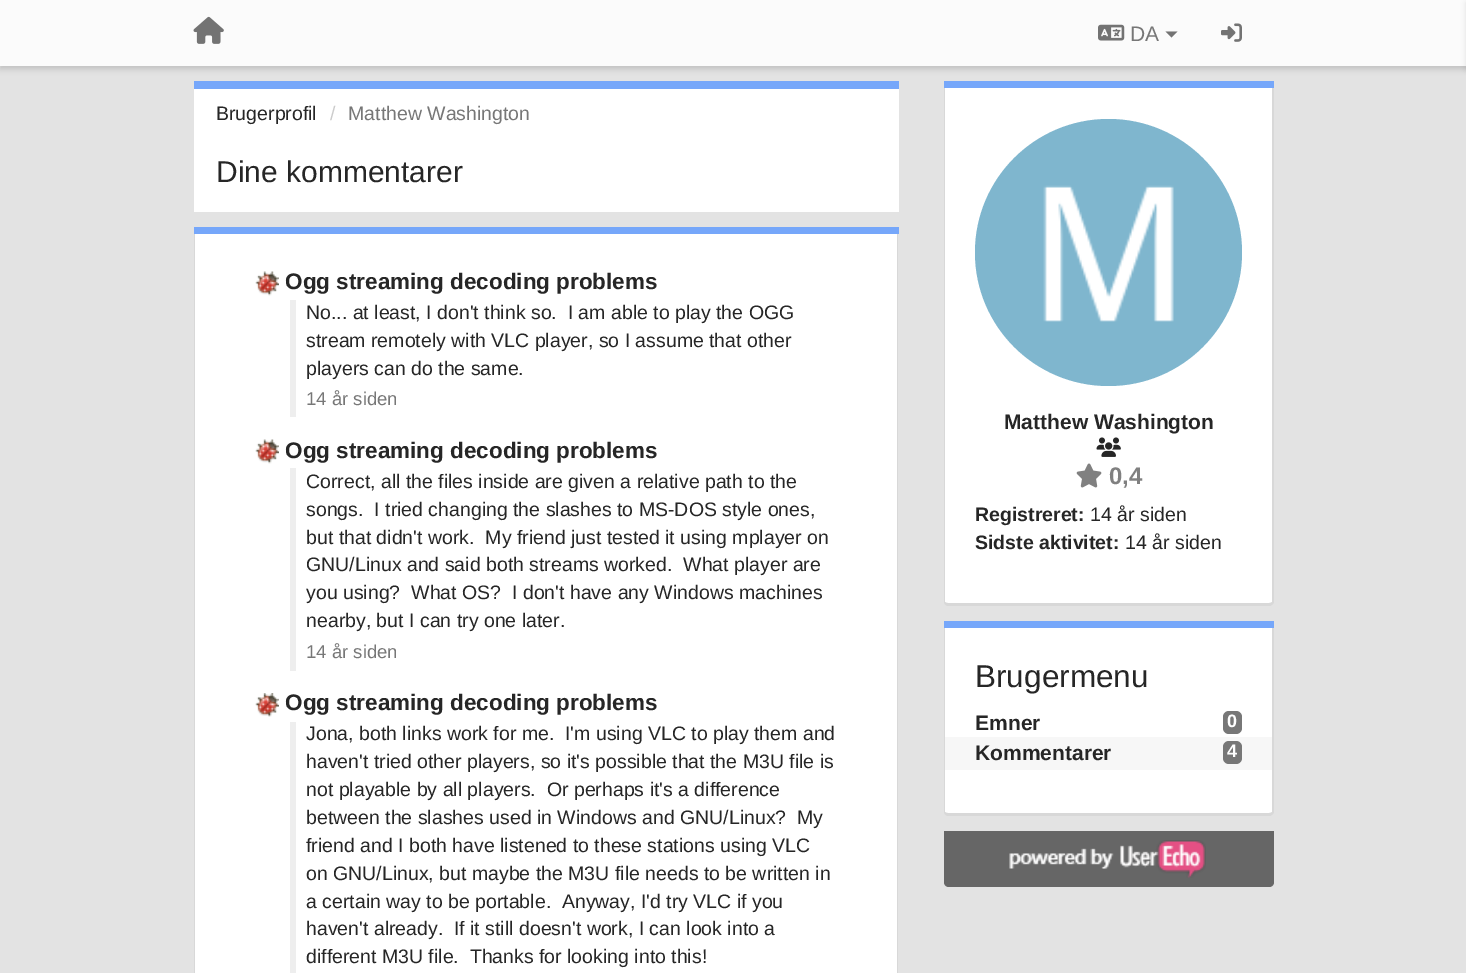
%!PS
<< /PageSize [1466 973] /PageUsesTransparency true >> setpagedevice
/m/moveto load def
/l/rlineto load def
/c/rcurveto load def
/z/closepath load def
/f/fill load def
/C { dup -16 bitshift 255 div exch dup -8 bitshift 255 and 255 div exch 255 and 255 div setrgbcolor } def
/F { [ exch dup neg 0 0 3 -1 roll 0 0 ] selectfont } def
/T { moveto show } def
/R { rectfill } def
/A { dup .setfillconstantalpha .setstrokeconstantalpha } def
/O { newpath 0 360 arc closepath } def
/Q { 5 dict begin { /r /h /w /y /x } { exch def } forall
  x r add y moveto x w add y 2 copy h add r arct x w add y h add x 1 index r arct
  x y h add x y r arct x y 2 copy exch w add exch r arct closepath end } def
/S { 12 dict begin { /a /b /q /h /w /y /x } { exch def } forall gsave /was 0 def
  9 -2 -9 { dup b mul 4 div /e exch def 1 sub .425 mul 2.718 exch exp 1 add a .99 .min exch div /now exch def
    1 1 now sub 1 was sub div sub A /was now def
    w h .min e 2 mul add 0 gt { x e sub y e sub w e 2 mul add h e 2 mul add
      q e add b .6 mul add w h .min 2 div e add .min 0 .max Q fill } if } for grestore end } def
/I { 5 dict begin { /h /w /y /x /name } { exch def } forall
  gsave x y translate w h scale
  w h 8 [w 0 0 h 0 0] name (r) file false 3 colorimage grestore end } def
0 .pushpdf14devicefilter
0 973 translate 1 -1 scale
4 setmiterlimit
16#E3E3E3 C
0 0 1466 973 R
16#000000 C
0 3 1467 66 0 3 .15 S
16#FBFBFB C
0 0 1466 66 R
(1.rgb) 193 16 31 28 I
(2.rgb) 1098 24 27 17 I
/LiberationSans-Regular 21 F
16#777777 C
(DA) 1130 41 T
16#737373 C
1165.5 31.5 m 12 0 l -6 6 l z f
(3.rgb) 1221 23 21 19 I
16#000000 C
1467 3 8 66 0 3 .15 S
16#FFFFFF C
194 89 705 123 R
16#76A7FA C
194 81 705 8 R
/LiberationSans-Regular 19.5 F
16#262626 C
(Brugerprofil) 216 120 T
16#CCCCCC C
(/) 330 120 T
16#777777 C
(Matthew Washington) 348 120 T
/LiberationSans-Regular 30 F
16#262626 C
(Dine kommentarer) 216 182 T
16#76A7FA C
194 227 705 7 R
16#FFFFFF C
195 234 m 702 0 l 0 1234 l 0 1 -1 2 -3 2 c -696 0 l -2 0 -3 -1 -3 -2 c z f
16#D8D8D8 C
194 234 m 704 0 l 0 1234 l 0 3 -2 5 -4 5 c -696 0 l -2 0 -4 -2 -4 -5 c z 195 234 m 702 0 l 0 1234 l 0 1 -1 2 -3 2 c -696 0 l -2 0 -3 -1 -3 -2 c z eofill
(4.rgb) 255 271 24 25 I
/LiberationSans-Bold 22.5 F
16#262626 C
(Ogg streaming decoding problems) 285 289 T
16#EEEEEE C
290 300 6 117 R
/LiberationSans-Regular 19.5 F
16#262626 C
(No... at least, I don't think so.  I am able to play the OGG) 306 319 T
(stream remotely with VLC player, so I assume that other) 306 347 T
(players can do the same.) 306 375 T
/LiberationSans-Regular 18.5 F
16#777777 C
(14 år siden) 306 405 T
(4.rgb) 255 439 24 25 I
/LiberationSans-Bold 22.5 F
16#262626 C
(Ogg streaming decoding problems) 285 458 T
16#EEEEEE C
290 468 6 203 R
/LiberationSans-Regular 19.5 F
16#262626 C
(Correct, all the files inside are given a relative path to the) 306 488 T
(songs.  I tried changing the slashes to MS-DOS style ones,) 306 516 T
(but that didn't work.  My friend just tested it using mplayer on) 306 544 T
(GNU/Linux and said both streams worked.  What player are) 306 571 T
(you using?  What OS?  I don't have any Windows machines) 306 599 T
(nearby, but I can try one later.) 306 627 T
/LiberationSans-Regular 18.5 F
16#777777 C
(14 år siden) 306 658 T
(5.rgb) 255 693 24 24 I
/LiberationSans-Bold 22.5 F
16#262626 C
(Ogg streaming decoding problems) 285 710 T
16#EEEEEE C
290 722 6 251 R
/LiberationSans-Regular 19.5 F
16#262626 C
(Jona, both links work for me.  I'm using VLC to play them and) 306 740 T
(haven't tried other players, so it's possible that the M3U file is) 306 768 T
(not playable by all players.  Or perhaps it's a difference) 306 796 T
(between the slashes used in Windows and GNU/Linux?  My) 306 824 T
(friend and I both have listened to these stations using VLC) 306 852 T
(on GNU/Linux, but maybe the M3U file needs to be written in) 306 880 T
(a certain way to be portable.  Anyway, I'd try VLC if you) 306 908 T
(haven't already.  If it still doesn't work, I can look into a) 306 935 T
(different M3U file.  Thanks for looking into this!) 306 963 T
16#76A7FA C
944 81 330 7 R
16#FFFFFF C
945 88 m 327 0 l 0 514 l 0 0 -1 1 -3 1 c -321 0 l -2 0 -3 -1 -3 -1 c z f
16#D8D8D8 C
944 88 m 330 0 l 0 514 l 0 2 -3 4 -5 4 c -321 0 l -2 0 -4 -2 -4 -4 c z 945 88 m 327 0 l 0 514 l 0 0 -1 1 -3 1 c -321 0 l -2 0 -3 -1 -3 -1 c z eofill
16#7FB6CE C
1108.5 252.5 133.5 O f
(6.rgb) 1043 185 131 137 I
/LiberationSans-Bold 21 F
16#262626 C
(Matthew Washington) 1004 429 T
(7.rgb) 1096 437 25 20 I
(8.rgb) 1076 463 26 25 I
/LiberationSans-Bold 24 F
16#808080 C
(0,4) 1109 484 T
/LiberationSans-Bold 19.5 F
16#262626 C
(Registreret:) 975 521 T
/LiberationSans-Regular 19.5 F
(14 år siden) 1090 521 T
/LiberationSans-Bold 19.5 F
(Sidste aktivitet:) 975 549 T
/LiberationSans-Regular 19.5 F
(14 år siden) 1125 549 T
16#76A7FA C
944 621 330 7 R
16#FFFFFF C
945 628 m 327 0 l 0 184 l 0 0 -1 1 -3 1 c -321 0 l -2 0 -3 -1 -3 -1 c z f
16#D8D8D8 C
944 628 m 330 0 l 0 184 l 0 2 -3 4 -5 4 c -321 0 l -2 0 -4 -2 -4 -4 c z 945 628 m 327 0 l 0 184 l 0 0 -1 1 -3 1 c -321 0 l -2 0 -3 -1 -3 -1 c z eofill
/LiberationSans-Regular 31.5 F
16#262626 C
(Brugermenu) 975 687 T
/LiberationSans-Bold 21 F
(Emner) 975 730 T
16#777777 C
1223 711 19 23 6 Q f
/LiberationSans-Bold 18 F
16#FFFFFF C
(0) 1227 727 T
16#F7F7F7 C
945 737 327 33 R
/LiberationSans-Bold 21 F
16#262626 C
(Kommentarer) 975 760 T
16#777777 C
1223 741 19 23 6 Q f
/LiberationSans-Bold 18 F
16#FFFFFF C
(4) 1227 757 T
16#666666 C
944 831 m 330 0 l 0 51 l 0 3 -2 5 -5 5 c -320 0 l -3 0 -5 -2 -5 -5 c z f
(9.rgb) 1009 840 197 38 I
.poppdf14devicefilter showpage
